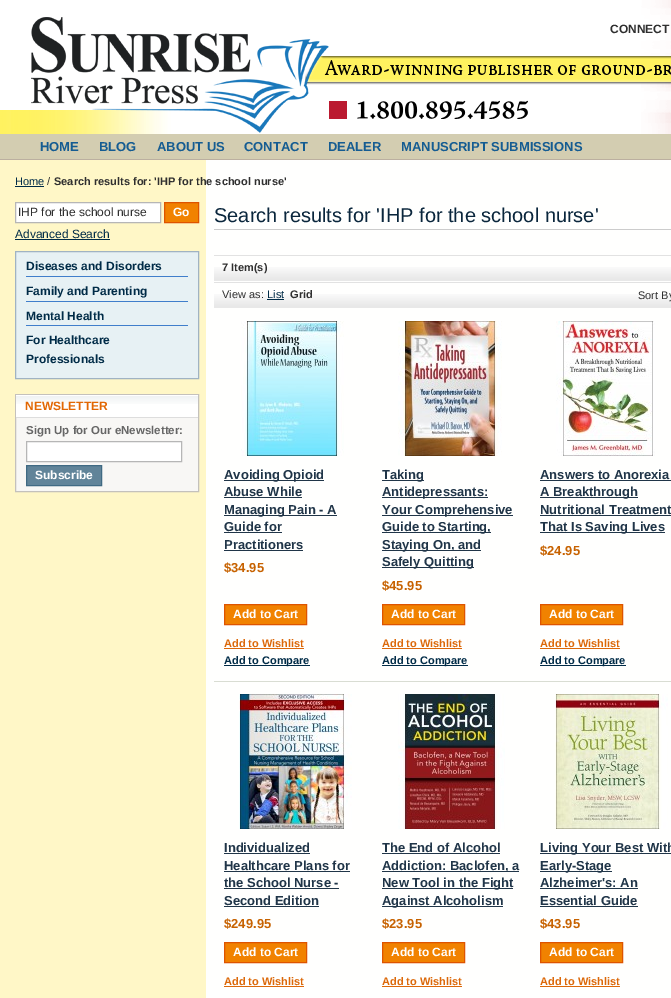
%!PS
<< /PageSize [671 998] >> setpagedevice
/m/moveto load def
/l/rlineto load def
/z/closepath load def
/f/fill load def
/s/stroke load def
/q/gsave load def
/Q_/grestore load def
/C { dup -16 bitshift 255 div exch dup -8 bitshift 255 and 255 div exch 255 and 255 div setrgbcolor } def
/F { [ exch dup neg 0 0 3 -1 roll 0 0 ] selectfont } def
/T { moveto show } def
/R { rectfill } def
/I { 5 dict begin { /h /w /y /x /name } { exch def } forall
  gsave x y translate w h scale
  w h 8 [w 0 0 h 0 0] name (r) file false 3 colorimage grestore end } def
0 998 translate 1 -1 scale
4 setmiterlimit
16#D3CDB1 C
0 0 671 998 R
(1.rgb) 0 0 671 134 I
(2.rgb) 11 17 318 117 I
/LiberationSans-Bold 12 F
16#2F2F2F C
(CONNECT) 610 33 T
16#BBAFA0 C
0 159 671 1 R
/LiberationSans-Bold 13 F
16#155C92 C
(HOME) 40 151 T
(BLOG) 99 151 T
(ABOUT US) 157 151 T
(CONTACT) 244 151 T
(DEALER) 328 151 T
(MANUSCRIPT SUBMISSIONS) 401 151 T
16#FFFFFE C
206 160 465 838 R
16#FFF7C7 C
0 160 206 838 R
/LiberationSans-Regular 11 F
16#002B47 C
(Home) 15 185 T
15 186 29 1 R
16#2F2F2F C
(/) 47 185 T
/LiberationSans-Bold 11 F
(Search results for: 'IHP for the school nurse') 54 185 T
16#FFFFFF C
15.5 202.5 m 145 0 l 0 20 l -145 0 l z q f Q_
16#B6B6B6 C
s
/LiberationSans-Regular 12 F
16#2F2F2F C
(IHP for the school nurse) 18 216 T
16#F18200 C
164.5 202.5 m 34 0 l 0 20 l -34 0 l z q f Q_
16#DE5400 C
s
/LiberationSans-Bold 12 F
16#FFFFFF C
(Go) 173 216 T
/LiberationSans-Regular 12 F
16#002B47 C
(Advanced Search) 15 238 T
15 239 95 1 R
16#E7F1F4 C
15.5 251.5 m 183 0 l 0 127 l -183 0 l z q f Q_
16#A0B3C3 C
s
16#407ECB C
26 276 162 1 R
/LiberationSans-Bold 12 F
16#002B47 C
(Diseases and Disorders) 26 270 T
16#407ECB C
26 301 162 1 R
16#002B47 C
(Family and Parenting) 26 295 T
16#407ECB C
26 325 162 1 R
16#002B47 C
(Mental Health) 26 320 T
(For Healthcare) 26 344 T
(Professionals) 26 363 T
16#F8F7F5 C
16 418 182 73 R
16#C4C1BC C
15.5 394.5 183 97 rectstroke
16#FFFFFF C
16 395 182 22 R
(3.rgb) 16 396 182 8 I
16#DDDDDD C
16 417 182 1 R
16#E26703 C
(NEWSLETTER) 25 410 T
/LiberationSans-Bold 11.5 F
16#666666 C
(Sign Up for Our eNewsletter:) 26 434 T
16#FFFFFF C
26.5 441.5 m 155 0 l 0 20 l -155 0 l z q f Q_
16#B6B6B6 C
s
16#618499 C
26.5 465.5 m 75 0 l 0 20 l -75 0 l z q f Q_
16#406A83 C
s
/LiberationSans-Bold 12 F
16#FFFFFF C
(Subscribe) 35 479 T
16#CCCCCC C
214 229 457 1 R
/LiberationSans-Regular 20 F
16#0A263C C
(Search results for 'IHP for the school nurse') 214 222 T
(4.rgb) 214 267 457 14 I
16#E2E2E2 C
214 255 457 1 R
/LiberationSans-Bold 11 F
16#2F2F2F C
(7 Item\(s\)) 222 271 T
(4.rgb) 214 294 457 14 I
16#E2E2E2 C
214 282 457 1 R
/LiberationSans-Regular 11 F
16#2F2F2F C
(View as:) 222 298 T
16#002B47 C
(List) 267 298 T
267 299 17 1 R
/LiberationSans-Bold 11 F
16#2F2F2F C
(Grid) 290 298 T
/LiberationSans-Regular 11 F
(Sort By) 638 299 T
16#D9DDD3 C
214 681 457 1 R
(5.rgb) 241 321 103 135 I
16#203548 C
224 480 100 1 R
/LiberationSans-Bold 13 F
(Avoiding Opioid) 224 479 T
(Abuse While) 224 496 T
224 497 78 1 R
224 515 113 1 R
(Managing Pain - A) 224 514 T
(Guide for) 224 531 T
224 532 58 1 R
(Practitioners) 224 549 T
224 550 79 1 R
16#C76200 C
($34.95) 224 572 T
16#F18200 C
224.5 604.5 m 82 0 l 0 20 l -82 0 l z q f Q_
16#DE5400 C
s
/LiberationSans-Bold 12 F
16#FFFFFF C
(Add to Cart) 233 618 T
/LiberationSans-Bold 11 F
16#DC6809 C
(Add to Wishlist) 224 647 T
224 648 80 1 R
16#002B47 C
224 665 86 1 R
(Add to Compare) 224 664 T
(6.rgb) 398 321 104 135 I
16#203548 C
382 480 42 1 R
/LiberationSans-Bold 13 F
(Taking) 382 479 T
382 497 106 1 R
(Antidepressants:) 382 496 T
382 515 131 1 R
(Your Comprehensive) 382 514 T
382 532 109 1 R
(Guide to Starting,) 382 531 T
382 550 99 1 R
(Staying On, and) 382 549 T
382 567 92 1 R
(Safely Quitting) 382 566 T
16#C76200 C
($45.95) 382 590 T
16#F18200 C
382.5 604.5 m 82 0 l 0 20 l -82 0 l z q f Q_
16#DE5400 C
s
/LiberationSans-Bold 12 F
16#FFFFFF C
(Add to Cart) 391 618 T
/LiberationSans-Bold 11 F
16#DC6809 C
(Add to Wishlist) 382 647 T
382 648 80 1 R
16#002B47 C
382 665 86 1 R
(Add to Compare) 382 664 T
(7.rgb) 556 321 99 135 I
/LiberationSans-Bold 13 F
16#203548 C
(Answers to Anorexia) 540 479 T
540 480 131 1 R
540 497 98 1 R
(A Breakthrough) 540 496 T
(Nutritional Treatment) 540 514 T
540 515 131 1 R
540 532 125 1 R
(That Is Saving Lives) 540 531 T
16#C76200 C
($24.95) 540 555 T
16#F18200 C
540.5 604.5 m 82 0 l 0 20 l -82 0 l z q f Q_
16#DE5400 C
s
/LiberationSans-Bold 12 F
16#FFFFFF C
(Add to Cart) 549 618 T
/LiberationSans-Bold 11 F
16#DC6809 C
(Add to Wishlist) 540 647 T
540 648 80 1 R
16#002B47 C
540 665 86 1 R
(Add to Compare) 540 664 T
(8.rgb) 239 694 113 135 I
/LiberationSans-Bold 13 F
16#203548 C
(Individualized) 224 852 T
224 853 86 1 R
(Healthcare Plans for) 224 870 T
224 871 126 1 R
(the School Nurse -) 224 887 T
224 888 115 1 R
(Second Edition) 224 905 T
224 906 95 1 R
16#C76200 C
($249.95) 224 928 T
16#F18200 C
224.5 942.5 m 82 0 l 0 20 l -82 0 l z q f Q_
16#DE5400 C
s
/LiberationSans-Bold 12 F
16#FFFFFF C
(Add to Cart) 233 956 T
/LiberationSans-Bold 11 F
16#DC6809 C
(Add to Wishlist) 224 985 T
224 986 80 1 R
(9.rgb) 398 694 107 135 I
/LiberationSans-Bold 13 F
16#203548 C
(The End of Alcohol) 382 852 T
382 853 118 1 R
382 871 137 1 R
(Addiction: Baclofen, a) 382 870 T
382 888 131 1 R
(New Tool in the Fight) 382 887 T
382 906 121 1 R
(Against Alcoholism) 382 905 T
16#C76200 C
($23.95) 382 928 T
16#F18200 C
382.5 942.5 m 82 0 l 0 20 l -82 0 l z q f Q_
16#DE5400 C
s
/LiberationSans-Bold 12 F
16#FFFFFF C
(Add to Cart) 391 956 T
/LiberationSans-Bold 11 F
16#DC6809 C
(Add to Wishlist) 382 985 T
382 986 80 1 R
(10.rgb) 555 694 113 135 I
16#203548 C
540 853 131 1 R
/LiberationSans-Bold 13 F
(Living Your Best With) 540 852 T
540 871 72 1 R
(Early-Stage) 540 870 T
(Alzheimer's: An) 540 887 T
540 888 98 1 R
(Essential Guide) 540 905 T
540 906 98 1 R
16#C76200 C
($43.95) 540 928 T
16#F18200 C
540.5 942.5 m 82 0 l 0 20 l -82 0 l z q f Q_
16#DE5400 C
s
/LiberationSans-Bold 12 F
16#FFFFFF C
(Add to Cart) 549 956 T
/LiberationSans-Bold 11 F
16#DC6809 C
(Add to Wishlist) 540 985 T
540 986 80 1 R
showpage
